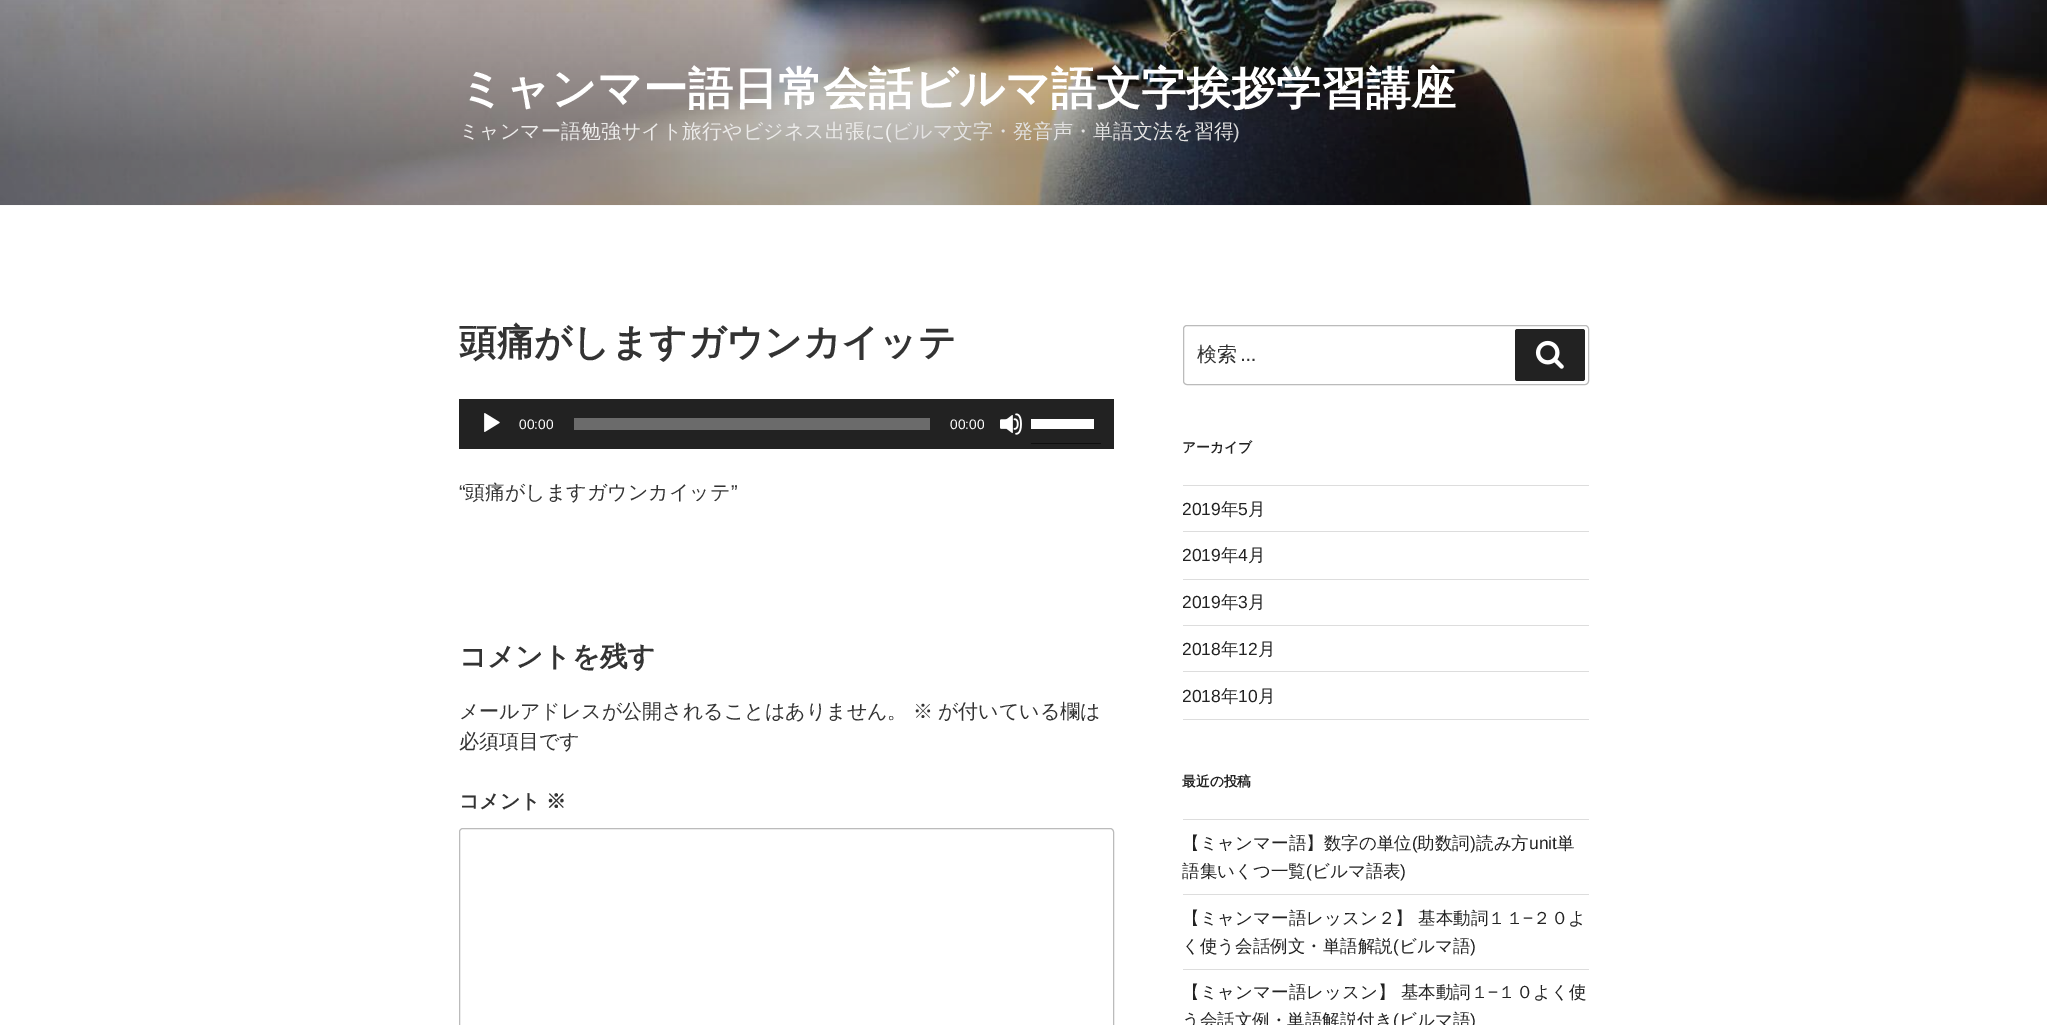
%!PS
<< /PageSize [2047 1025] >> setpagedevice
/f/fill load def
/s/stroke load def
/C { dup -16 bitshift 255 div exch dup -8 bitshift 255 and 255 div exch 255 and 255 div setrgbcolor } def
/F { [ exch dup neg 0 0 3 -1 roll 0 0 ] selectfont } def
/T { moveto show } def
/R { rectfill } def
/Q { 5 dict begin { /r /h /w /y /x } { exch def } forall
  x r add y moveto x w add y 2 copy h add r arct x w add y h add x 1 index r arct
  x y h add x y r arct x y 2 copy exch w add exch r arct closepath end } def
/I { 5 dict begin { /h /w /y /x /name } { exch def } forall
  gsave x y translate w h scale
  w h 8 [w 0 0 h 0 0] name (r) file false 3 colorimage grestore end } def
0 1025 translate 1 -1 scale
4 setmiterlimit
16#FFFFFF C
0 0 2047 1025 R
16#FAFAFA C
0 205 2047 1 R
(1.rgb) 0 0 2047 205 I
/WenQuanYiZenHei-Bold 45 F
16#FFFFFF C
(ミャンマー語日常会話ビルマ語文字挨拶学習講座) 459 104 T
/WenQuanYiZenHei-Medium 20 F
16#ECEBEA C
(ミャンマー語勉強サイト旅行やビジネス出張に) 459 138 T
/LiberationSans-Regular 20 F
16#F1F1F0 C
(\() 885 138 T
/WenQuanYiZenHei-Medium 20 F
16#E3E2E2 C
(ビルマ文字・発音声・単語文法を習得) 892 138 T
/LiberationSans-Regular 20 F
16#D2D3D5 C
(\)) 1233 138 T
/WenQuanYiZenHei-Bold 37.5 F
16#333333 C
(頭痛がしますガウンカイッテ) 459 355 T
16#222222 C
459 399 655 50 R
(2.rgb) 484 413 16 19 I
/LiberationSans-Regular 13.75 F
16#FFFFFF C
(00:00) 519 429 T
16#6B6B6B C
574 418 356 12 R
16#FFFFFF C
(00:00) 950 429 T
(3.rgb) 1000 413 22 22 I
16#0F0F0F C
1031 443 70 1 R
16#FFFFFF C
1031 419 63 10 R
/LiberationSans-Regular 20 F
16#333333 C
(“) 459 499 T
/WenQuanYiZenHei-Medium 20 F
(頭痛がしますガウンカイッテ) 465 499 T
/LiberationSans-Regular 20 F
(”) 731 499 T
/WenQuanYiZenHei-Bold 27.5 F
(コメントを残す) 459 666 T
/WenQuanYiZenHei-Medium 20 F
(メールアドレスが公開されることはありません。) 459 718 T
(※) 913 718 T
(が付いている欄は) 938 718 T
(必須項目です) 459 748 T
/WenQuanYiZenHei-Bold 20 F
(コメント) 459 808 T
(※) 546 808 T
16#BBBBBB C
459.5 828.5 654 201 3.5 Q s
1183.5 325.5 405 59 3.5 Q s
/WenQuanYiZenHei-Medium 20 F
16#333333 C
(検索) 1197 361 T
/LibreFranklin-Regular 20 F
(…) 1241 361 T
16#222222 C
1515 329 70 52 2.5 Q f
(4.rgb) 1535 340 29 29 I
/WenQuanYiZenHei-Bold 13.75 F
(アーカイブ) 1182 452 T
16#DDDDDD C
1183 485 406 1 R
1183 531 406 1 R
/LiberationSans-Regular 17.5 F
16#222222 C
(2019) 1182 515 T
/WenQuanYiZenHei-Medium 17.5 F
(年) 1221 515 T
/LiberationSans-Regular 17.5 F
(5) 1238 515 T
/WenQuanYiZenHei-Medium 17.5 F
(月) 1248 515 T
16#DDDDDD C
1183 579 406 1 R
/LiberationSans-Regular 17.5 F
16#222222 C
(2019) 1182 561 T
/WenQuanYiZenHei-Medium 17.5 F
(年) 1221 561 T
/LiberationSans-Regular 17.5 F
(4) 1238 561 T
/WenQuanYiZenHei-Medium 17.5 F
(月) 1248 561 T
16#DDDDDD C
1183 625 406 1 R
/LiberationSans-Regular 17.5 F
16#222222 C
(2019) 1182 608 T
/WenQuanYiZenHei-Medium 17.5 F
(年) 1221 608 T
/LiberationSans-Regular 17.5 F
(3) 1238 608 T
/WenQuanYiZenHei-Medium 17.5 F
(月) 1248 608 T
16#DDDDDD C
1183 671 406 1 R
/LiberationSans-Regular 17.5 F
16#222222 C
(2018) 1182 655 T
/WenQuanYiZenHei-Medium 17.5 F
(年) 1221 655 T
/LiberationSans-Regular 17.5 F
(12) 1238 655 T
/WenQuanYiZenHei-Medium 17.5 F
(月) 1258 655 T
16#DDDDDD C
1183 719 406 1 R
/LiberationSans-Regular 17.5 F
16#222222 C
(2018) 1182 702 T
/WenQuanYiZenHei-Medium 17.5 F
(年) 1221 702 T
/LiberationSans-Regular 17.5 F
(10) 1238 702 T
/WenQuanYiZenHei-Medium 17.5 F
(月) 1258 702 T
/WenQuanYiZenHei-Bold 13.75 F
(最近の投稿) 1182 786 T
16#DDDDDD C
1183 819 406 1 R
1183 894 406 1 R
/WenQuanYiZenHei-Medium 17.5 F
16#222222 C
(【ミャンマー語】数字の単位) 1182 849 T
/LiberationSans-Regular 17.5 F
(\() 1412 849 T
/WenQuanYiZenHei-Medium 17.5 F
(助数詞) 1417 849 T
/LiberationSans-Regular 17.5 F
(\)) 1470 849 T
/WenQuanYiZenHei-Medium 17.5 F
(読み方) 1476 849 T
/LiberationSans-Regular 17.5 F
(unit) 1529 849 T
/WenQuanYiZenHei-Medium 17.5 F
(単) 1557 849 T
(語集いくつ一覧) 1182 877 T
/LiberationSans-Regular 17.5 F
(\() 1306 877 T
/WenQuanYiZenHei-Medium 17.5 F
(ビルマ語表) 1312 877 T
/LiberationSans-Regular 17.5 F
(\)) 1400 877 T
16#DDDDDD C
1183 969 406 1 R
/WenQuanYiZenHei-Medium 17.5 F
16#222222 C
(【ミャンマー語レッスン２】 基本動詞１１) 1182 924 T
/LiberationSans-Regular 17.5 F
(−) 1523 924 T
/WenQuanYiZenHei-Medium 17.5 F
(２０よ) 1533 924 T
(く使う会話例文・単語解説) 1182 952 T
/LiberationSans-Regular 17.5 F
(\() 1393 952 T
/WenQuanYiZenHei-Medium 17.5 F
(ビルマ語) 1399 952 T
/LiberationSans-Regular 17.5 F
(\)) 1470 952 T
/WenQuanYiZenHei-Medium 17.5 F
(【ミャンマー語レッスン】 基本動詞１) 1182 998 T
/LiberationSans-Regular 17.5 F
(−) 1488 998 T
/WenQuanYiZenHei-Medium 17.5 F
(１０よく使) 1498 998 T
(う会話文例・単語解説付き) 1182 1026 T
/LiberationSans-Regular 17.5 F
(\() 1393 1026 T
/WenQuanYiZenHei-Medium 17.5 F
(ビルマ語) 1399 1026 T
/LiberationSans-Regular 17.5 F
(\)) 1470 1026 T
showpage
